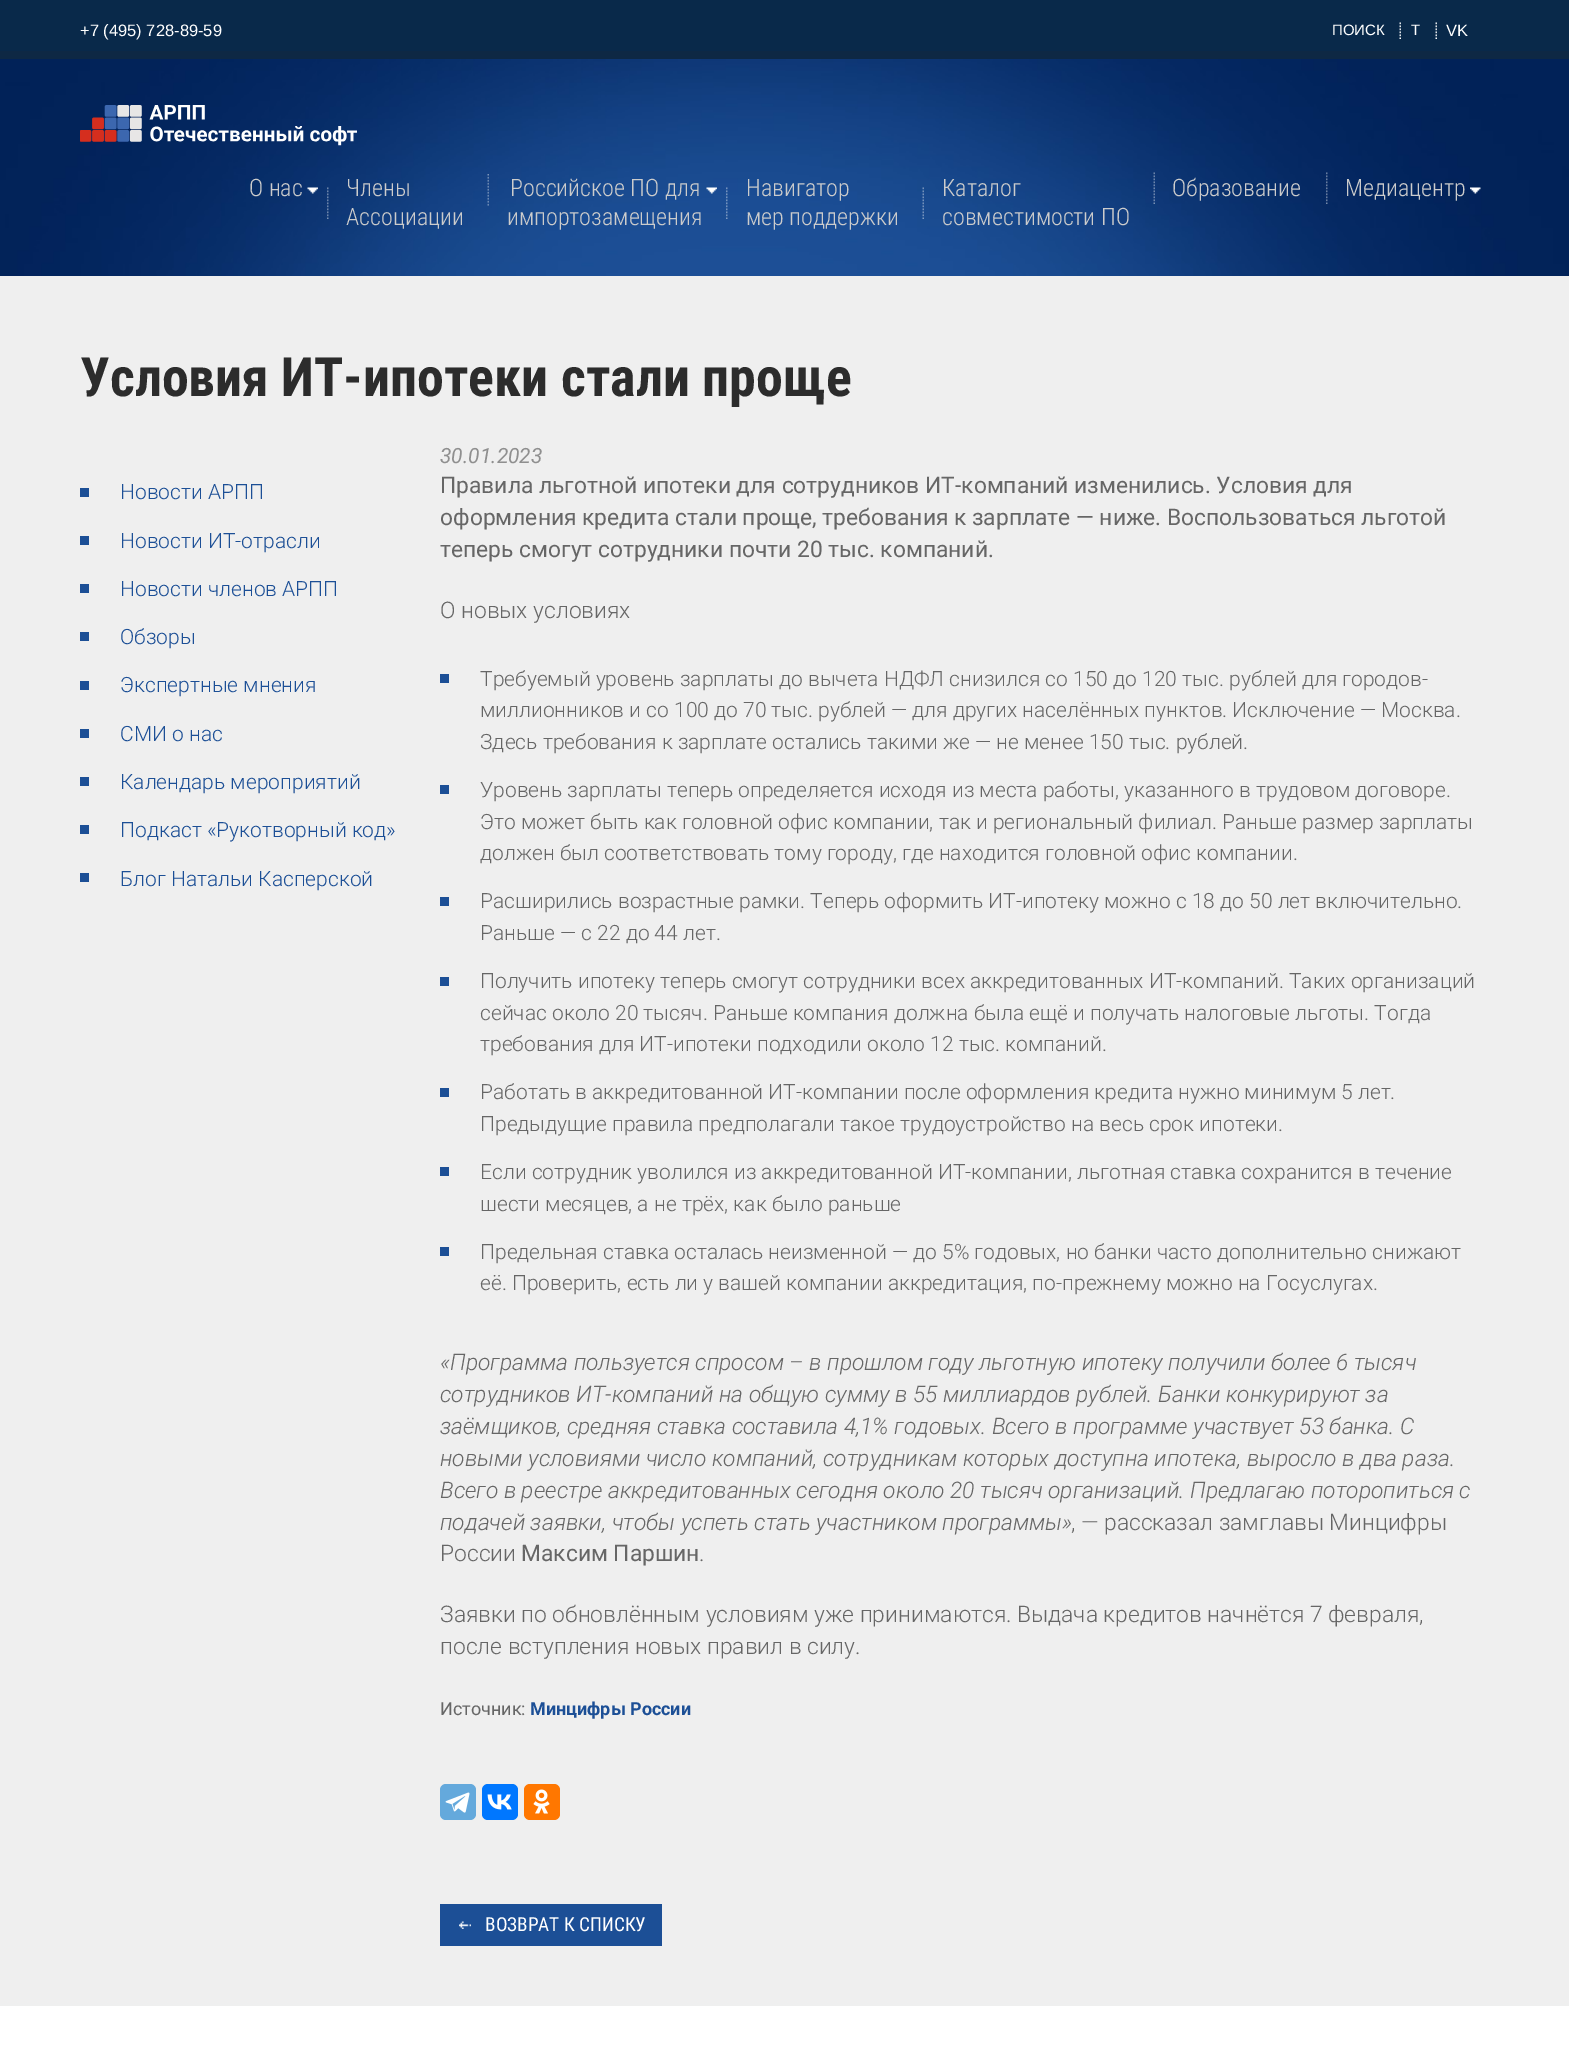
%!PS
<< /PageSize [1569 2062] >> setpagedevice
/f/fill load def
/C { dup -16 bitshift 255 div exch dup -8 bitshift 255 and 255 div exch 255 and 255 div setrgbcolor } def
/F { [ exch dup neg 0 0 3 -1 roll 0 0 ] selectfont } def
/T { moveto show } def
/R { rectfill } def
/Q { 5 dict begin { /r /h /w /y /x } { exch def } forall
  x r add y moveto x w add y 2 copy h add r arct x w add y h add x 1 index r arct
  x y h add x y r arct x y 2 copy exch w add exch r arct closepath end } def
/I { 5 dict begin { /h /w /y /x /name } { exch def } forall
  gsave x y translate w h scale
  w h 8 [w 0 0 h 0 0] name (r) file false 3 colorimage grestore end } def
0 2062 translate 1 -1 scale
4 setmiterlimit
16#FFFFFF C
0 0 1569 2062 R
16#09294A C
0 0 1569 51 R
/LiberationSans-Regular 16.5 F
16#FFFFFF C
(+7 \(495\) 728-89-59) 80 36 T
(1.rgb) 1399 22 2 17 I
/LiberationSans-Regular 15 F
(ПОИСК) 1332 35 T
(1.rgb) 1435 22 2 17 I
(T) 1411 35 T
/LiberationSans-Regular 16.5 F
(VK) 1446 36 T
16#0E2844 C
0 51 1569 8 R
(2.rgb) 0 59 1569 217 I
(3.rgb) 80 105 277 41 I
/RobotoCondensed-Light 24 F
16#CCCCCC C
(О нас) 249 196 T
(4.rgb) 307 187 11 7 I
(5.rgb) 327 187 2 32 I
(Члены) 346 196 T
(Ассоциации) 346 225 T
(6.rgb) 487 174 2 32 I
(Российское ПО для) 510 196 T
(7.rgb) 706 187 11 7 I
(импортозамещения) 507 225 T
(8.rgb) 726 187 2 32 I
(Навигатор) 746 196 T
(мер поддержки) 746 225 T
(9.rgb) 922 187 2 32 I
(Каталог) 942 196 T
(совместимости ПО) 942 225 T
(10.rgb) 1153 172 2 32 I
(Образование) 1172 196 T
(11.rgb) 1326 172 2 32 I
(Медиацентр) 1345 196 T
(12.rgb) 1470 187 11 7 I
16#EFEFEF C
0 276 1569 1730 R
/RobotoCondensed-Bold 54 F
16#2C2C2C C
(Условия ИТ-ипотеки стали проще) 80 396 T
16#1C4F96 C
80 488 9 9 R
/Roboto-Light 21 F
(Новости АРПП) 120 499 T
80 536 9 9 R
(Новости ИТ-отрасли) 120 548 T
80 584 9 9 R
(Новости членов АРПП) 120 596 T
80 632 9 9 R
(Обзоры) 120 644 T
80 681 9 9 R
(Экспертные мнения) 120 692 T
80 729 9 9 R
(СМИ о нас) 120 741 T
80 777 9 9 R
(Календарь мероприятий) 120 789 T
80 825 9 9 R
(Подкаст «Рукотворный код») 120 837 T
80 873 9 9 R
(Блог Натальи Касперской) 120 886 T
/Roboto-Italic 21 F
16#8F8F8F C
(30.01.2023) 440 463 T
/Roboto-Regular 22.8 F
16#666666 C
(Правила льготной ипотеки для сотрудников ИТ-компаний изменились. Условия для) 440 493 T
(оформления кредита стали проще, требования к зарплате — ниже. Воспользоваться льготой) 440 525 T
(теперь смогут сотрудники почти 20 тыс. компаний.) 440 557 T
/Roboto-Light 22.8 F
(О новых условиях) 440 618 T
16#1C4F96 C
440 674 9 9 R
/Roboto-Light 21 F
16#666666 C
(Требуемый уровень зарплаты до вычета НДФЛ снизился со 150 до 120 тыс. рублей для городов-) 480 686 T
(миллионников и со 100 до 70 тыс. рублей — для других населённых пунктов. Исключение — Москва.) 480 717 T
(Здесь требования к зарплате остались такими же — не менее 150 тыс. рублей.) 480 749 T
16#1C4F96 C
440 785 9 9 R
16#666666 C
(Уровень зарплаты теперь определяется исходя из места работы, указанного в трудовом договоре.) 480 797 T
(Это может быть как головной офис компании, так и региональный филиал. Раньше размер зарплаты) 480 829 T
(должен был соответствовать тому городу, где находится головной офис компании.) 480 860 T
16#1C4F96 C
440 897 9 9 R
16#666666 C
(Расширились возрастные рамки. Теперь оформить ИТ-ипотеку можно с 18 до 50 лет включительно.) 480 908 T
(Раньше — с 22 до 44 лет.) 480 940 T
16#1C4F96 C
440 977 9 9 R
16#666666 C
(Получить ипотеку теперь смогут сотрудники всех аккредитованных ИТ-компаний. Таких организаций) 480 988 T
(сейчас около 20 тысяч. Раньше компания должна была ещё и получать налоговые льготы. Тогда) 480 1020 T
(требования для ИТ-ипотеки подходили около 12 тыс. компаний.) 480 1051 T
16#1C4F96 C
440 1088 9 9 R
16#666666 C
(Работать в аккредитованной ИТ-компании после оформления кредита нужно минимум 5 лет.) 480 1099 T
(Предыдущие правила предполагали такое трудоустройство на весь срок ипотеки.) 480 1131 T
16#1C4F96 C
440 1167 9 9 R
16#666666 C
(Если сотрудник уволился из аккредитованной ИТ-компании, льготная ставка сохранится в течение) 480 1179 T
(шести месяцев, а не трёх, как было раньше) 480 1211 T
16#1C4F96 C
440 1247 9 9 R
16#666666 C
(Предельная ставка осталась неизменной — до 5% годовых, но банки часто дополнительно снижают) 480 1259 T
(её. Проверить, есть ли у вашей компании аккредитация, по-прежнему можно на Госуслугах.) 480 1290 T
/Roboto-LightItalic 22.8 F
(«Программа пользуется спросом – в прошлом году льготную ипотеку получили более 6 тысяч) 440 1370 T
(сотрудников ИТ-компаний на общую сумму в 55 миллиардов рублей. Банки конкурируют за) 440 1402 T
(заёмщиков, средняя ставка составила 4,1% годовых. Всего в программе участвует 53 банка. С) 440 1434 T
(новыми условиями число компаний, сотрудникам которых доступна ипотека, выросло в два раза.) 440 1466 T
(Всего в реестре аккредитованных сегодня около 20 тысяч организаций. Предлагаю поторопиться с) 440 1498 T
(подачей заявки, чтобы успеть стать участником программы») 440 1530 T
/Roboto-Light 22.8 F
(, — рассказал замглавы Минцифры) 1071 1530 T
(России) 440 1561 T
/Roboto-Regular 22.8 F
(Максим Паршин) 521 1561 T
/Roboto-Light 22.8 F
(.) 699 1561 T
(Заявки по обновлённым условиям уже принимаются. Выдача кредитов начнётся 7 февраля,) 440 1622 T
(после вступления новых правил в силу.) 440 1654 T
/Roboto-Regular 18 F
(Источник:) 440 1715 T
/Roboto-Bold 18 F
16#1C4F96 C
(Минцифры России) 530 1715 T
16#64A9DC C
440 1784 36 36 6 Q f
(13.rgb) 445 1792 25 21 I
16#0077FF C
482 1784 36 36 6 Q f
(14.rgb) 487 1794 25 16 I
16#FF7700 C
524 1784 36 36 6 Q f
(15.rgb) 533 1789 17 25 I
16#1C4F96 C
440 1904 222 42 R
(16.rgb) 459 1921 12 8 I
/RobotoCondensed-Regular 19.25 F
16#FFFFFF C
(ВОЗВРАТ К СПИСКУ) 485 1931 T
showpage
